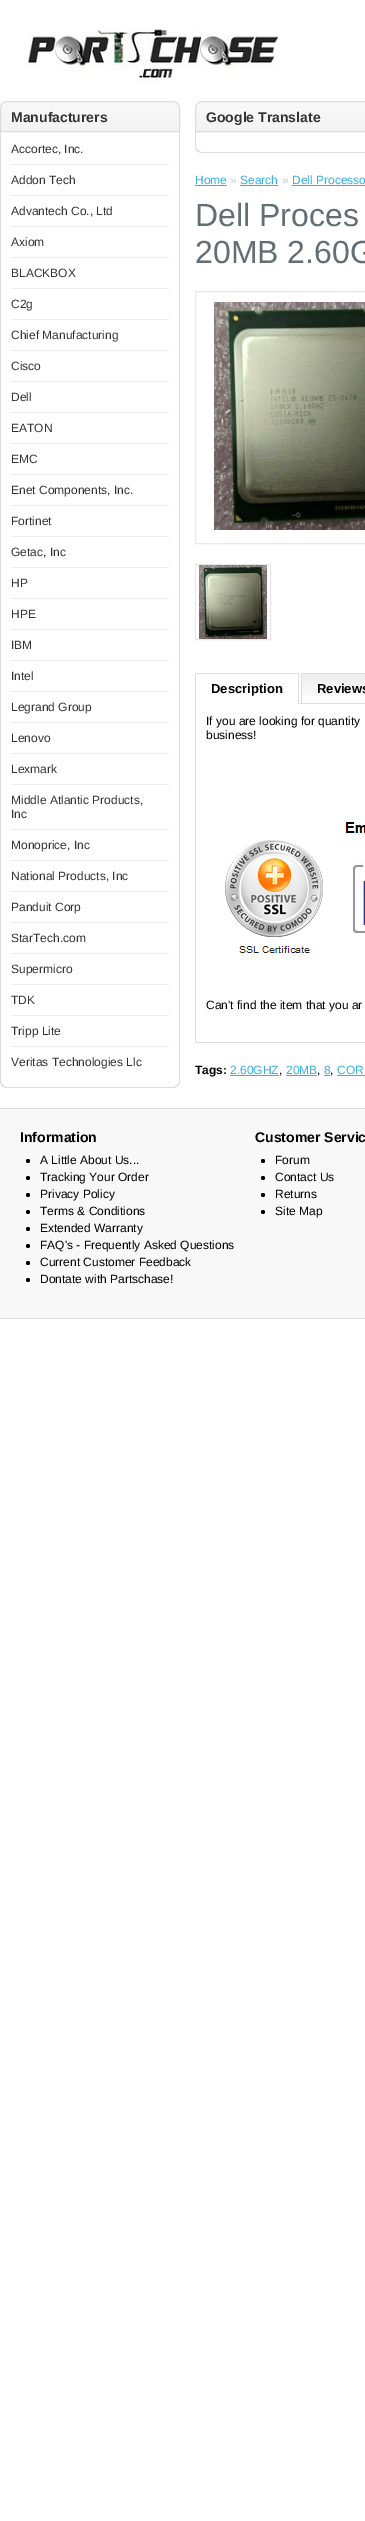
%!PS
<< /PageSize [365 2521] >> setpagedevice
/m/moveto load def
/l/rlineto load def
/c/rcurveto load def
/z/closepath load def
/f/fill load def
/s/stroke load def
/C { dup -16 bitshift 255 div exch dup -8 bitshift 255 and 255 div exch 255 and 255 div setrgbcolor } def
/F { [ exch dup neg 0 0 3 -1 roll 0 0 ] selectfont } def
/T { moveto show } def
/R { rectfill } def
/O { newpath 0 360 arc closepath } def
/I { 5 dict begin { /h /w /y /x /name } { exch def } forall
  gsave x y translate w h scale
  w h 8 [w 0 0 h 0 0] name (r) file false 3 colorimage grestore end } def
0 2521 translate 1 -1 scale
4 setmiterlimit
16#FFFFFF C
0 0 365 2521 R
(1.rgb) 23 29 256 53 I
(2.rgb) 0 102 180 29 I
16#DBDEE1 C
7 101.5 m 166 0 l 3.5 0 6.5 3 6.5 6.5 c 0 23.5 l -179 0 l 0 -23.5 l 0 -3.5 3 -6.5 6.5 -6.5 c z s
/LiberationSans-Bold 14 F
16#333333 C
(Manufacturers) 11 122 T
16#DBDEE1 C
0 132 m 180 0 l 0 949 l 0 4 -3 7 -7 7 c -166 0 l -4 0 -7 -3 -7 -7 c z 1 132 m 178 0 l 0 949 l 0 3 -3 6 -6 6 c -166 0 l -3 0 -6 -3 -6 -6 c z eofill
/LiberationSans-Regular 12 F
16#333333 C
(Accortec, Inc.) 11 153 T
16#EEEEEE C
11 164 158 1 R
16#333333 C
(Addon Tech) 11 184 T
16#EEEEEE C
11 195 158 1 R
16#333333 C
(Advantech Co., Ltd) 11 215 T
16#EEEEEE C
11 226 158 1 R
16#333333 C
(Axiom) 11 246 T
16#EEEEEE C
11 257 158 1 R
16#333333 C
(BLACKBOX) 11 277 T
16#EEEEEE C
11 288 158 1 R
16#333333 C
(C2g) 11 308 T
16#EEEEEE C
11 319 158 1 R
16#333333 C
(Chief Manufacturing) 11 339 T
16#EEEEEE C
11 350 158 1 R
16#333333 C
(Cisco) 11 370 T
16#EEEEEE C
11 381 158 1 R
16#333333 C
(Dell) 11 401 T
16#EEEEEE C
11 412 158 1 R
16#333333 C
(EATON) 11 432 T
16#EEEEEE C
11 443 158 1 R
16#333333 C
(EMC) 11 463 T
16#EEEEEE C
11 474 158 1 R
16#333333 C
(Enet Components, Inc.) 11 494 T
16#EEEEEE C
11 505 158 1 R
16#333333 C
(Fortinet) 11 525 T
16#EEEEEE C
11 536 158 1 R
16#333333 C
(Getac, Inc) 11 556 T
16#EEEEEE C
11 567 158 1 R
16#333333 C
(HP) 11 587 T
16#EEEEEE C
11 598 158 1 R
16#333333 C
(HPE) 11 618 T
16#EEEEEE C
11 629 158 1 R
16#333333 C
(IBM) 11 649 T
16#EEEEEE C
11 660 158 1 R
16#333333 C
(Intel) 11 680 T
16#EEEEEE C
11 691 158 1 R
16#333333 C
(Legrand Group) 11 711 T
16#EEEEEE C
11 722 158 1 R
16#333333 C
(Lenovo) 11 742 T
16#EEEEEE C
11 753 158 1 R
16#333333 C
(Lexmark) 11 773 T
16#EEEEEE C
11 784 158 1 R
16#333333 C
(Middle Atlantic Products,) 11 804 T
(Inc) 11 818 T
16#EEEEEE C
11 829 158 1 R
16#333333 C
(Monoprice, Inc) 11 849 T
16#EEEEEE C
11 860 158 1 R
16#333333 C
(National Products, Inc) 11 880 T
16#EEEEEE C
11 891 158 1 R
16#333333 C
(Panduit Corp) 11 911 T
16#EEEEEE C
11 922 158 1 R
16#333333 C
(StarTech.com) 11 942 T
16#EEEEEE C
11 953 158 1 R
16#333333 C
(Supermicro) 11 973 T
16#EEEEEE C
11 984 158 1 R
16#333333 C
(TDK) 11 1004 T
16#EEEEEE C
11 1015 158 1 R
16#333333 C
(Tripp Lite) 11 1035 T
16#EEEEEE C
11 1046 158 1 R
16#333333 C
(Veritas Technologies Llc) 11 1066 T
(3.rgb) 195 102 170 29 I
16#DBDEE1 C
202 101.5 m 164 0 l 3.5 0 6.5 3 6.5 6.5 c 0 23.5 l -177 0 l 0 -23.5 l 0 -3.5 3 -6.5 6.5 -6.5 c z s
/LiberationSans-Bold 14 F
16#333333 C
(Google Translate) 206 122 T
16#DBDEE1 C
195 132 m 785 0 l 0 14 l 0 4 -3 7 -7 7 c -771 0 l -4 0 -7 -3 -7 -7 c z 196 132 m 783 0 l 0 14 l 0 3 -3 6 -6 6 c -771 0 l -3 0 -6 -3 -6 -6 c z eofill
/LiberationSans-Regular 12 F
16#38B0E3 C
(Home) 195 184 T
195 185 32 1 R
16#CCCCCC C
(») 230 184 T
16#38B0E3 C
(Search) 240 184 T
240 185 38 1 R
16#CCCCCC C
(») 282 184 T
16#38B0E3 C
(Dell Processo) 292 184 T
292 185 73 1 R
/LiberationSans-Regular 32 F
16#636E75 C
(Dell Proces) 195 226 T
(20MB 2.60G) 195 263 T
16#E7E7E7 C
195.5 291.5 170 252 rectstroke
(4.rgb) 214 302 151 228 I
195.5 564.5 75 75 rectstroke
(5.rgb) 196 565 72 74 I
16#DDDDDD C
299 703 66 1 R
195 673 104 1 R
298 673 1 31 R
195 673 1 31 R
/LiberationSans-Bold 13 F
16#000000 C
(Description) 211 693 T
(6.rgb) 302 674 63 22 I
16#DDDDDD C
301 673 64 1 R
301 673 1 30 R
16#000000 C
(Reviews) 317 693 T
16#DDDDDD C
195 1042 170 1 R
195 704 1 339 R
/LiberationSans-Regular 12 F
16#000000 C
(If you are looking for quantity) 206 725 T
(business!) 206 739 T
(7.rgb) 225 822 140 131 I
(Can't find the item that you ar) 206 1009 T
/LiberationSans-Bold 12 F
(Tags:) 195 1074 T
/LiberationSans-Regular 12 F
16#38B0E3 C
(2.60GHZ) 230 1074 T
230 1075 49 1 R
16#000000 C
(,) 279 1074 T
16#38B0E3 C
(20MB) 286 1074 T
286 1075 31 1 R
16#000000 C
(,) 317 1074 T
16#38B0E3 C
(8) 324 1074 T
324 1075 6 1 R
16#000000 C
(,) 330 1074 T
16#38B0E3 C
(COR) 337 1074 T
337 1075 28 1 R
16#F8F8F8 C
0 1109 365 209 R
16#DBDEE1 C
0 1108 365 1 R
0 1318 365 1 R
/LiberationSans-Bold 14 F
16#000000 C
(Information) 20 1142 T
28 1161 2 O f
/LiberationSans-Regular 12 F
(A Little About Us...) 40 1164 T
28 1178 2 O f
(Tracking Your Order) 40 1181 T
28 1195 2 O f
(Privacy Policy) 40 1198 T
28 1212 2 O f
(Terms & Conditions) 40 1215 T
28 1229 2 O f
(Extended Warranty) 40 1232 T
28 1246 2 O f
(FAQ's - Frequently Asked Questions) 40 1249 T
28 1263 2 O f
(Current Customer Feedback) 40 1266 T
28 1280 2 O f
(Dontate with Partschase!) 40 1283 T
/LiberationSans-Bold 14 F
(Customer Servic) 255 1142 T
263 1161 2 O f
/LiberationSans-Regular 12 F
(Forum) 275 1164 T
263 1178 2 O f
(Contact Us) 275 1181 T
263 1195 2 O f
(Returns) 275 1198 T
263 1212 2 O f
(Site Map) 275 1215 T
showpage
